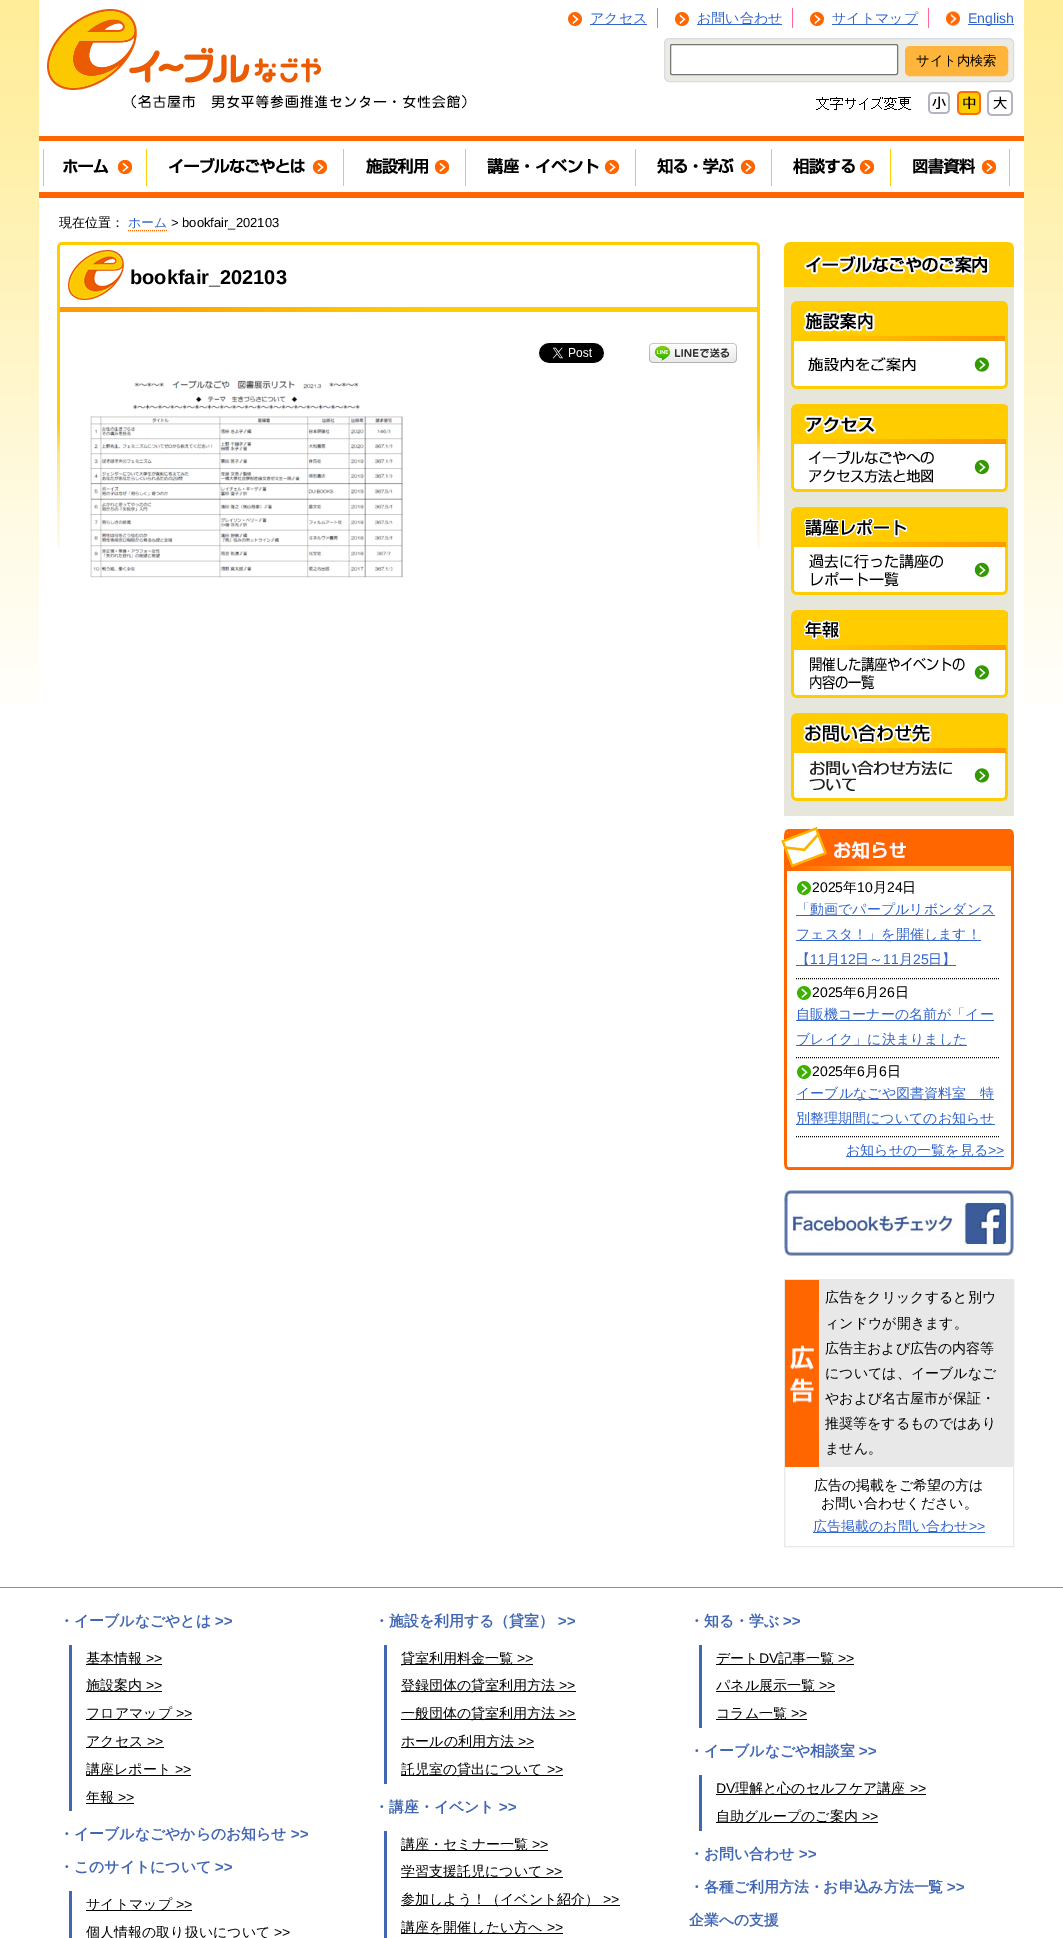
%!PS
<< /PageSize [1063 1938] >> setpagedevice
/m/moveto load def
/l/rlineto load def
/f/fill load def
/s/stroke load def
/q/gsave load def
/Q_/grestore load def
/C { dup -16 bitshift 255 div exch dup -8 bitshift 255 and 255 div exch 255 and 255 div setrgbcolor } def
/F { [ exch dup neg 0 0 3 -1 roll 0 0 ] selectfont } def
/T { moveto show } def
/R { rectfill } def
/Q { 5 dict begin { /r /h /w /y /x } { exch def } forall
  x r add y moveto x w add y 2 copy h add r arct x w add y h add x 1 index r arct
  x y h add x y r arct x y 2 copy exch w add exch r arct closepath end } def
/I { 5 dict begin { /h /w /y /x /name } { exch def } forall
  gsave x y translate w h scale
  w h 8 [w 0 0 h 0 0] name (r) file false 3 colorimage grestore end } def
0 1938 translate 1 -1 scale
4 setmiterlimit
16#FFFFFF C
0 0 1063 1938 R
(1.rgb) 0 0 1063 705 I
39 0 985 705 R
(2.rgb) 47 9 420 100 I
(3.rgb) 568 12 14 14 I
16#3366CC C
590 24 57 1 R
/WenQuanYiZenHei-Medium 14 F
(アクセス) 590 23 T
16#FF6699 C
657 8 1 20 R
(3.rgb) 675 12 14 14 I
16#3366CC C
697 24 85 1 R
(お問い合わせ) 697 23 T
16#FF6699 C
792 8 1 20 R
(3.rgb) 810 12 14 14 I
16#3366CC C
832 24 86 1 R
(サイトマップ) 832 23 T
16#FF6699 C
928 8 1 20 R
(4.rgb) 946 11 14 15 I
16#3366CC C
968 24 46 1 R
/LiberationSans-Regular 14 F
(English) 968 23 T
16#EBEAE3 C
664.5 38.5 349 43 4.5 Q q f Q_
16#D7DEE3 C
s
16#FFFFFF C
670.5 44.5 227 30 1.5 Q q f Q_
16#767676 C
s
16#FFB53C C
905.5 46.5 102 29 4.5 Q q f Q_
s
/WenQuanYiZenHei-Medium 13.25 F
16#000000 C
(サイト内検索) 916 65 T
(5.rgb) 816 97 95 13 I
(6.rgb) 928 92 22 22 I
(7.rgb) 957 91 24 24 I
(8.rgb) 987 90 26 26 I
16#FF6600 C
39 192 985 6 R
39 136 985 5 R
16#FFCC00 C
43 149 1 37 R
146 149 1 37 R
(9.rgb) 63 159 69 15 I
343 149 1 37 R
(10.rgb) 169 158 158 16 I
465 149 1 37 R
(11.rgb) 366 158 83 16 I
635 149 1 37 R
(12.rgb) 487 158 132 16 I
771 149 1 37 R
(13.rgb) 657 158 98 16 I
890 149 1 37 R
(14.rgb) 793 158 81 16 I
1009 149 1 37 R
(15.rgb) 913 158 83 16 I
/WenQuanYiZenHei-Medium 13 F
16#000000 C
(現在位置：) 59 227 T
16#3366CC C
(ホーム) 128 227 T
16#FF6600 C
[1 1] 0 setdash
128 230.5 m 39 0 l s
/LiberationSans-Regular 13 F
16#000000 C
(> bookfair_202103) 171 227 T
(16.rgb) 57 242 703 306 I
(17.rgb) 60 250 697 62 I
/LiberationSans-Bold 20 F
(bookfair_202103) 130 284 T
(18.rgb) 539 343 65 20 I
(19.rgb) 649 343 88 20 I
(20.rgb) 90 380 313 198 I
16#E7E6DD C
784 287 230 529 R
(21.rgb) 784 242 230 45 I
(22.rgb) 791 301 217 40 I
(23.rgb) 791 341 217 48 I
(24.rgb) 808 357 181 15 I
(25.rgb) 791 404 217 40 I
(23.rgb) 791 444 217 48 I
(26.rgb) 809 450 180 33 I
(27.rgb) 791 507 217 40 I
(23.rgb) 791 547 217 48 I
(28.rgb) 809 554 180 33 I
(29.rgb) 791 610 217 40 I
(23.rgb) 791 650 217 48 I
(30.rgb) 810 657 179 33 I
(31.rgb) 791 713 217 40 I
(23.rgb) 791 753 217 48 I
(32.rgb) 809 760 180 31 I
(33.rgb) 784 871 230 299 I
(34.rgb) 781 826 233 45 I
(35.rgb) 797 881 14 14 I
/LiberationSans-Regular 14 F
16#000000 C
(2025) 812 892 T
/WenQuanYiZenHei-Medium 14 F
(年) 843 892 T
/LiberationSans-Regular 14 F
(10) 857 892 T
/WenQuanYiZenHei-Medium 14 F
(月) 873 892 T
/LiberationSans-Regular 14 F
(24) 887 892 T
/WenQuanYiZenHei-Medium 14 F
(日) 902 892 T
796 978.5 m 203 0 l s
16#3366CC C
796 915 199 1 R
(「動画でパープルリボンダンス) 796 914 T
796 940 185 1 R
(フェスタ！」を開催します！) 796 939 T
796 965 160 1 R
(【) 796 964 T
/LiberationSans-Regular 14 F
(11) 810 964 T
/WenQuanYiZenHei-Medium 14 F
(月) 826 964 T
/LiberationSans-Regular 14 F
(12) 840 964 T
/WenQuanYiZenHei-Medium 14 F
(日～) 855 964 T
/LiberationSans-Regular 14 F
(11) 883 964 T
/WenQuanYiZenHei-Medium 14 F
(月) 899 964 T
/LiberationSans-Regular 14 F
(25) 913 964 T
/WenQuanYiZenHei-Medium 14 F
(日】) 928 964 T
(35.rgb) 797 986 14 14 I
/LiberationSans-Regular 14 F
16#000000 C
(2025) 812 997 T
/WenQuanYiZenHei-Medium 14 F
(年) 843 997 T
/LiberationSans-Regular 14 F
(6) 857 997 T
/WenQuanYiZenHei-Medium 14 F
(月) 865 997 T
/LiberationSans-Regular 14 F
(26) 879 997 T
/WenQuanYiZenHei-Medium 14 F
(日) 895 997 T
796 1057.5 m 203 0 l s
16#3366CC C
796 1020 198 1 R
(自販機コーナーの名前が「イー) 796 1019 T
796 1045 171 1 R
(ブレイク」に決まりました) 796 1044 T
(35.rgb) 797 1065 14 14 I
/LiberationSans-Regular 14 F
16#000000 C
(2025) 812 1076 T
/WenQuanYiZenHei-Medium 14 F
(年) 843 1076 T
/LiberationSans-Regular 14 F
(6) 857 1076 T
/WenQuanYiZenHei-Medium 14 F
(月) 865 1076 T
/LiberationSans-Regular 14 F
(6) 879 1076 T
/WenQuanYiZenHei-Medium 14 F
(日) 887 1076 T
796 1136.5 m 203 0 l s
16#3366CC C
796 1099 198 1 R
(イーブルなごや図書資料室　特) 796 1098 T
796 1124 199 1 R
(別整理期間についてのお知らせ) 796 1123 T
846 1156 158 1 R
(お知らせの一覧を見る) 846 1155 T
/LiberationSans-Regular 14 F
(>>) 988 1155 T
(36.rgb) 784 1190 230 66 I
16#E8E8E8 C
[] 0 setdash
784.5 1279.5 229 267 rectstroke
819 1280 194 187 R
(37.rgb) 785 1280 34 187 I
/WenQuanYiZenHei-Medium 14 F
16#000000 C
(広告をクリックすると別ウ) 825 1302 T
(ィンドウが開きます。) 825 1328 T
(広告主および広告の内容等) 825 1353 T
(については、イーブルなご) 825 1378 T
(やおよび名古屋市が保証・) 825 1403 T
(推奨等をするものではあり) 825 1428 T
(ません。) 825 1453 T
(広告の掲載をご希望の方は) 814 1490 T
(お問い合わせください。) 821 1508 T
16#3366CC C
813 1532 172 1 R
(広告掲載のお問い合わせ) 813 1531 T
/LiberationSans-Regular 14 F
(>>) 969 1531 T
16#939393 C
0 1587 1063 1 R
/WenQuanYiZenHei-Bold 14.9 F
16#4267B2 C
(・イーブルなごやとは) 59 1626 T
/LiberationSans-Bold 14.9 F
(>>) 215 1626 T
69 1645 3 166 R
16#000000 C
86 1664 76 1 R
/WenQuanYiZenHei-Medium 14 F
(基本情報) 86 1663 T
/LiberationSans-Regular 14 F
(>>) 146 1663 T
86 1691 76 1 R
/WenQuanYiZenHei-Medium 14 F
(施設案内) 86 1690 T
/LiberationSans-Regular 14 F
(>>) 146 1690 T
86 1719 106 1 R
/WenQuanYiZenHei-Medium 14 F
(フロアマップ) 86 1718 T
/LiberationSans-Regular 14 F
(>>) 176 1718 T
86 1747 78 1 R
/WenQuanYiZenHei-Medium 14 F
(アクセス) 86 1746 T
/LiberationSans-Regular 14 F
(>>) 147 1746 T
86 1775 105 1 R
/WenQuanYiZenHei-Medium 14 F
(講座レポート) 86 1774 T
/LiberationSans-Regular 14 F
(>>) 175 1774 T
86 1803 48 1 R
/WenQuanYiZenHei-Medium 14 F
(年報) 86 1802 T
/LiberationSans-Regular 14 F
(>>) 118 1802 T
/WenQuanYiZenHei-Bold 14.9 F
16#4267B2 C
(・イーブルなごやからのお知らせ) 59 1839 T
/LiberationSans-Bold 14.9 F
(>>) 291 1839 T
/WenQuanYiZenHei-Bold 14.9 F
(・このサイトについて) 59 1872 T
/LiberationSans-Bold 14.9 F
(>>) 215 1872 T
69 1891 3 47 R
16#000000 C
86 1910 106 1 R
/WenQuanYiZenHei-Medium 14 F
(サイトマップ) 86 1909 T
/LiberationSans-Regular 14 F
(>>) 176 1909 T
/WenQuanYiZenHei-Medium 14 F
(個人情報の取り扱いについて) 86 1937 T
/LiberationSans-Regular 14 F
(>>) 274 1937 T
/WenQuanYiZenHei-Bold 14.9 F
16#4267B2 C
(・施設を利用する（貸室）) 374 1626 T
/LiberationSans-Bold 14.9 F
(>>) 558 1626 T
384 1645 3 139 R
16#000000 C
401 1664 132 1 R
/WenQuanYiZenHei-Medium 14 F
(貸室利用料金一覧) 401 1663 T
/LiberationSans-Regular 14 F
(>>) 517 1663 T
401 1691 175 1 R
/WenQuanYiZenHei-Medium 14 F
(登録団体の貸室利用方法) 401 1690 T
/LiberationSans-Regular 14 F
(>>) 559 1690 T
401 1719 175 1 R
/WenQuanYiZenHei-Medium 14 F
(一般団体の貸室利用方法) 401 1718 T
/LiberationSans-Regular 14 F
(>>) 559 1718 T
401 1747 133 1 R
/WenQuanYiZenHei-Medium 14 F
(ホールの利用方法) 401 1746 T
/LiberationSans-Regular 14 F
(>>) 518 1746 T
401 1775 162 1 R
/WenQuanYiZenHei-Medium 14 F
(託児室の貸出について) 401 1774 T
/LiberationSans-Regular 14 F
(>>) 547 1774 T
/WenQuanYiZenHei-Bold 14.9 F
16#4267B2 C
(・講座・イベント) 374 1812 T
/LiberationSans-Bold 14.9 F
(>>) 499 1812 T
384 1831 3 107 R
16#000000 C
401 1850 147 1 R
/WenQuanYiZenHei-Medium 14 F
(講座・セミナー一覧) 401 1849 T
/LiberationSans-Regular 14 F
(>>) 532 1849 T
401 1877 162 1 R
/WenQuanYiZenHei-Medium 14 F
(学習支援託児について) 401 1876 T
/LiberationSans-Regular 14 F
(>>) 546 1876 T
401 1905 219 1 R
/WenQuanYiZenHei-Medium 14 F
(参加しよう！（イベント紹介）) 401 1904 T
/LiberationSans-Regular 14 F
(>>) 603 1904 T
401 1933 162 1 R
/WenQuanYiZenHei-Medium 14 F
(講座を開催したい方へ) 401 1932 T
/LiberationSans-Regular 14 F
(>>) 547 1932 T
/WenQuanYiZenHei-Bold 14.9 F
16#4267B2 C
(・知る・学ぶ) 689 1626 T
/LiberationSans-Bold 14.9 F
(>>) 783 1626 T
699 1645 3 83 R
16#000000 C
716 1664 138 1 R
/WenQuanYiZenHei-Medium 14 F
(デート) 716 1663 T
/LiberationSans-Regular 14 F
(DV) 759 1663 T
/WenQuanYiZenHei-Medium 14 F
(記事一覧) 778 1663 T
/LiberationSans-Regular 14 F
(>>) 838 1663 T
716 1691 119 1 R
/WenQuanYiZenHei-Medium 14 F
(パネル展示一覧) 716 1690 T
/LiberationSans-Regular 14 F
(>>) 819 1690 T
716 1719 91 1 R
/WenQuanYiZenHei-Medium 14 F
(コラム一覧) 716 1718 T
/LiberationSans-Regular 14 F
(>>) 791 1718 T
/WenQuanYiZenHei-Bold 14.9 F
16#4267B2 C
(・イーブルなごや相談室) 689 1756 T
/LiberationSans-Bold 14.9 F
(>>) 859 1756 T
699 1775 3 56 R
/LiberationSans-Regular 14 F
16#000000 C
(DV) 716 1793 T
716 1794 210 1 R
/WenQuanYiZenHei-Medium 14 F
(理解と心のセルフケア講座) 735 1793 T
/LiberationSans-Regular 14 F
(>>) 910 1793 T
716 1822 162 1 R
/WenQuanYiZenHei-Medium 14 F
(自助グループのご案内) 716 1821 T
/LiberationSans-Regular 14 F
(>>) 862 1821 T
/WenQuanYiZenHei-Bold 14.9 F
16#4267B2 C
(・お問い合わせ) 689 1859 T
/LiberationSans-Bold 14.9 F
(>>) 799 1859 T
/WenQuanYiZenHei-Bold 14.9 F
(・各種ご利用方法・お申込み方法一覧) 689 1892 T
/LiberationSans-Bold 14.9 F
(>>) 947 1892 T
/WenQuanYiZenHei-Bold 14.9 F
(企業への支援) 689 1925 T
showpage
